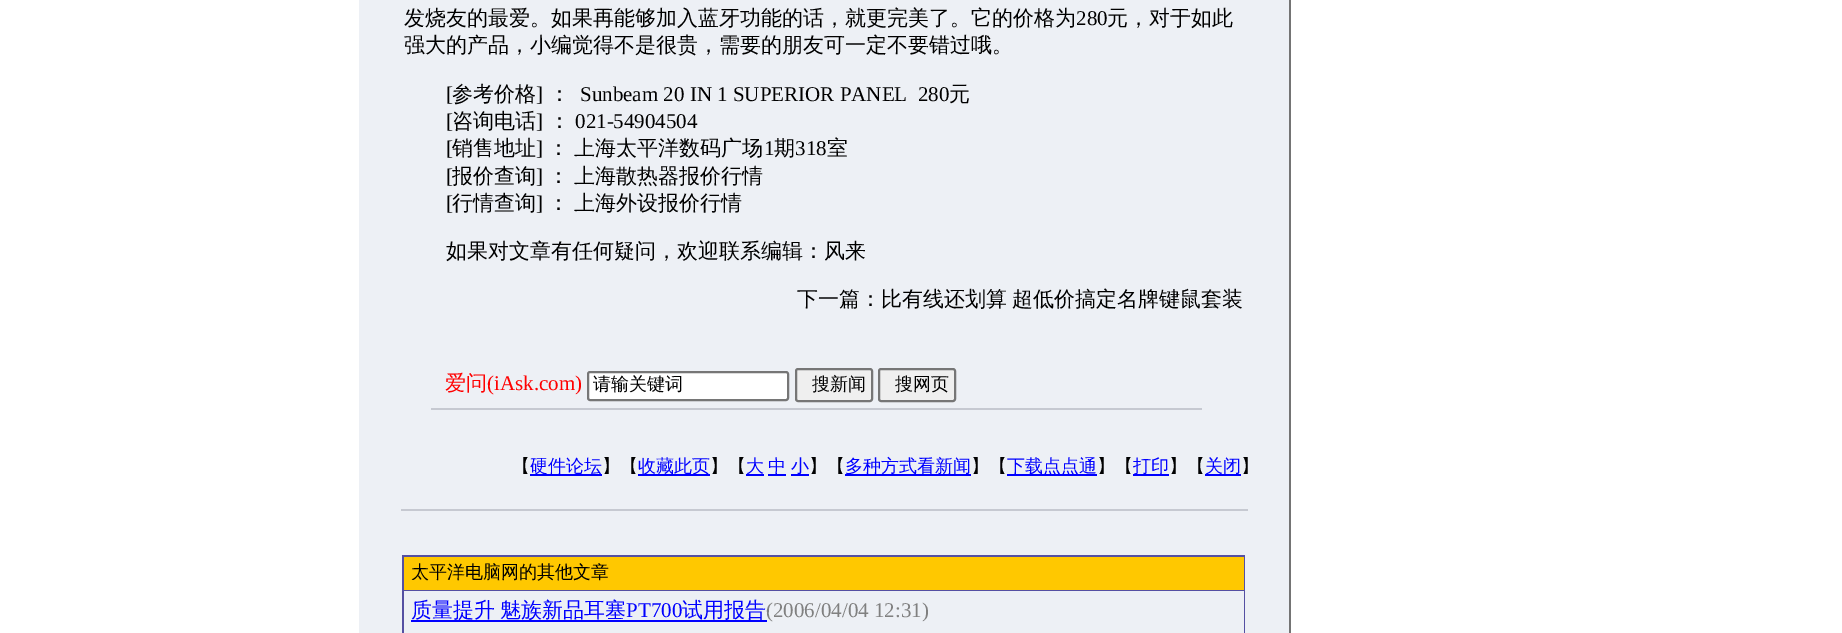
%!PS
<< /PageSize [1842 633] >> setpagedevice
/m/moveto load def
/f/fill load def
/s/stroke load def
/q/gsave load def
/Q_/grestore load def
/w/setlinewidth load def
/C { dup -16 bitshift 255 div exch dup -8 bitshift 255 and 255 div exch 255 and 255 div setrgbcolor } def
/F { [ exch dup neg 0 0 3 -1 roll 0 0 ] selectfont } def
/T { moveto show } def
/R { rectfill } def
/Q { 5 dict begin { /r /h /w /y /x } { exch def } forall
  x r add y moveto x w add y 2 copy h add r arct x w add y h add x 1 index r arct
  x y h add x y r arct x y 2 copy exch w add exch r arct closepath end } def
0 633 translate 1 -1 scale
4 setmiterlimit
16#FFFFFF C
0 0 1842 633 R
16#EDF0F5 C
359 0 930 633 R
/WenQuanYiZenHei-Medium 21 F
16#000000 C
(发烧友的最爱。如果再能够加入蓝牙功能的话，就更完美了。它的价格为) 404 25 T
/LiberationSerif-Regular 21 F
(280) 1076 25 T
/WenQuanYiZenHei-Medium 21 F
(元，对于如此) 1107 25 T
(强大的产品，小编觉得不是很贵，需要的朋友可一定不要错过哦。) 404 52 T
/LiberationSerif-Regular 21 F
([) 446 101 T
/WenQuanYiZenHei-Medium 21 F
(参考价格) 452 101 T
/LiberationSerif-Regular 21 F
(]) 536 101 T
/WenQuanYiZenHei-Medium 21 F
(：) 549 101 T
/LiberationSerif-Regular 21 F
(Sunbeam 20 IN 1 SUPERIOR PANEL  280) 580 101 T
/WenQuanYiZenHei-Medium 21 F
(元) 949 101 T
/LiberationSerif-Regular 21 F
([) 446 128 T
/WenQuanYiZenHei-Medium 21 F
(咨询电话) 452 128 T
/LiberationSerif-Regular 21 F
(]) 536 128 T
/WenQuanYiZenHei-Medium 21 F
(：) 549 128 T
/LiberationSerif-Regular 21 F
(021-54904504) 575 128 T
([) 446 155 T
/WenQuanYiZenHei-Medium 21 F
(销售地址) 452 155 T
/LiberationSerif-Regular 21 F
(]) 536 155 T
/WenQuanYiZenHei-Medium 21 F
548 155 m -1 0 32 (： 上海太平洋数码广场) widthshow
/LiberationSerif-Regular 21 F
(1) 764 155 T
/WenQuanYiZenHei-Medium 21 F
(期) 774 155 T
/LiberationSerif-Regular 21 F
(318) 795 155 T
/WenQuanYiZenHei-Medium 21 F
(室) 827 155 T
/LiberationSerif-Regular 21 F
([) 446 183 T
/WenQuanYiZenHei-Medium 21 F
(报价查询) 452 183 T
/LiberationSerif-Regular 21 F
(]) 536 183 T
/WenQuanYiZenHei-Medium 21 F
548 183 m -1 0 32 (： 上海散热器报价行情) widthshow
/LiberationSerif-Regular 21 F
([) 446 210 T
/WenQuanYiZenHei-Medium 21 F
(行情查询) 452 210 T
/LiberationSerif-Regular 21 F
(]) 536 210 T
/WenQuanYiZenHei-Medium 21 F
548 210 m -1 0 32 (： 上海外设报价行情) widthshow
(如果对文章有任何疑问，欢迎联系编辑：风来) 446 258 T
797 306 m -1 0 32 (下一篇：比有线还划算 超低价搞定名牌键鼠套装) widthshow
16#C6C9D1 C
431 408 771 2 R
16#FF0000 C
(爱问) 445 390 T
/LiberationSerif-Regular 21 F
(\(iAsk.com\)) 487 390 T
16#FFFFFF C
588 372 200 28 2 Q q f Q_
16#767676 C
2 w
s
/WenQuanYiZenHei-Medium 18 F
16#000000 C
(请输关键词) 593 390 T
16#EFEFEF C
796 369 76 32 2 Q q f Q_
16#767676 C
s
16#000000 C
(搜新闻) 812 390 T
16#EFEFEF C
879 369 76 32 2 Q q f Q_
16#767676 C
s
16#000000 C
(搜网页) 895 390 T
(【) 512 472 T
16#0000FF C
530 474 72 2 R
(硬件论坛) 530 472 T
16#000000 C
(】【) 602 472 T
16#0000FF C
638 474 72 2 R
(收藏此页) 638 472 T
16#000000 C
(】【) 710 472 T
16#0000FF C
746 474 18 2 R
(大) 746 472 T
(中) 768 472 T
768 474 18 2 R
791 474 18 2 R
(小) 791 472 T
16#000000 C
(】【) 809 472 T
16#0000FF C
845 474 126 2 R
(多种方式看新闻) 845 472 T
16#000000 C
(】【) 971 472 T
16#0000FF C
1007 474 90 2 R
(下载点点通) 1007 472 T
16#000000 C
(】【) 1097 472 T
16#0000FF C
1133 474 36 2 R
(打印) 1133 472 T
16#000000 C
(】【) 1169 472 T
16#0000FF C
1205 474 36 2 R
(关闭) 1205 472 T
16#000000 C
(】) 1241 472 T
16#C6C9D1 C
401 509 847 2 R
16#5550A2 C
402 555 843 78 R
16#FFC800 C
404 557 840 33 R
16#000000 C
(太平洋电脑网的其他文章) 411 578 T
16#EDF0F5 C
404 591 840 42 R
16#0000FF C
411 620 356 2 R
/WenQuanYiZenHei-Medium 21 F
411 617 m -1 0 32 (质量提升 魅族新品耳塞) widthshow
/LiberationSerif-Regular 21 F
(PT700) 626 617 T
/WenQuanYiZenHei-Medium 21 F
(试用报告) 682 617 T
/LiberationSerif-Regular 21 F
16#808080 C
(\(2006/04/04 12:31\)) 766 617 T
16#747474 C
1289 0 2 633 R
showpage
